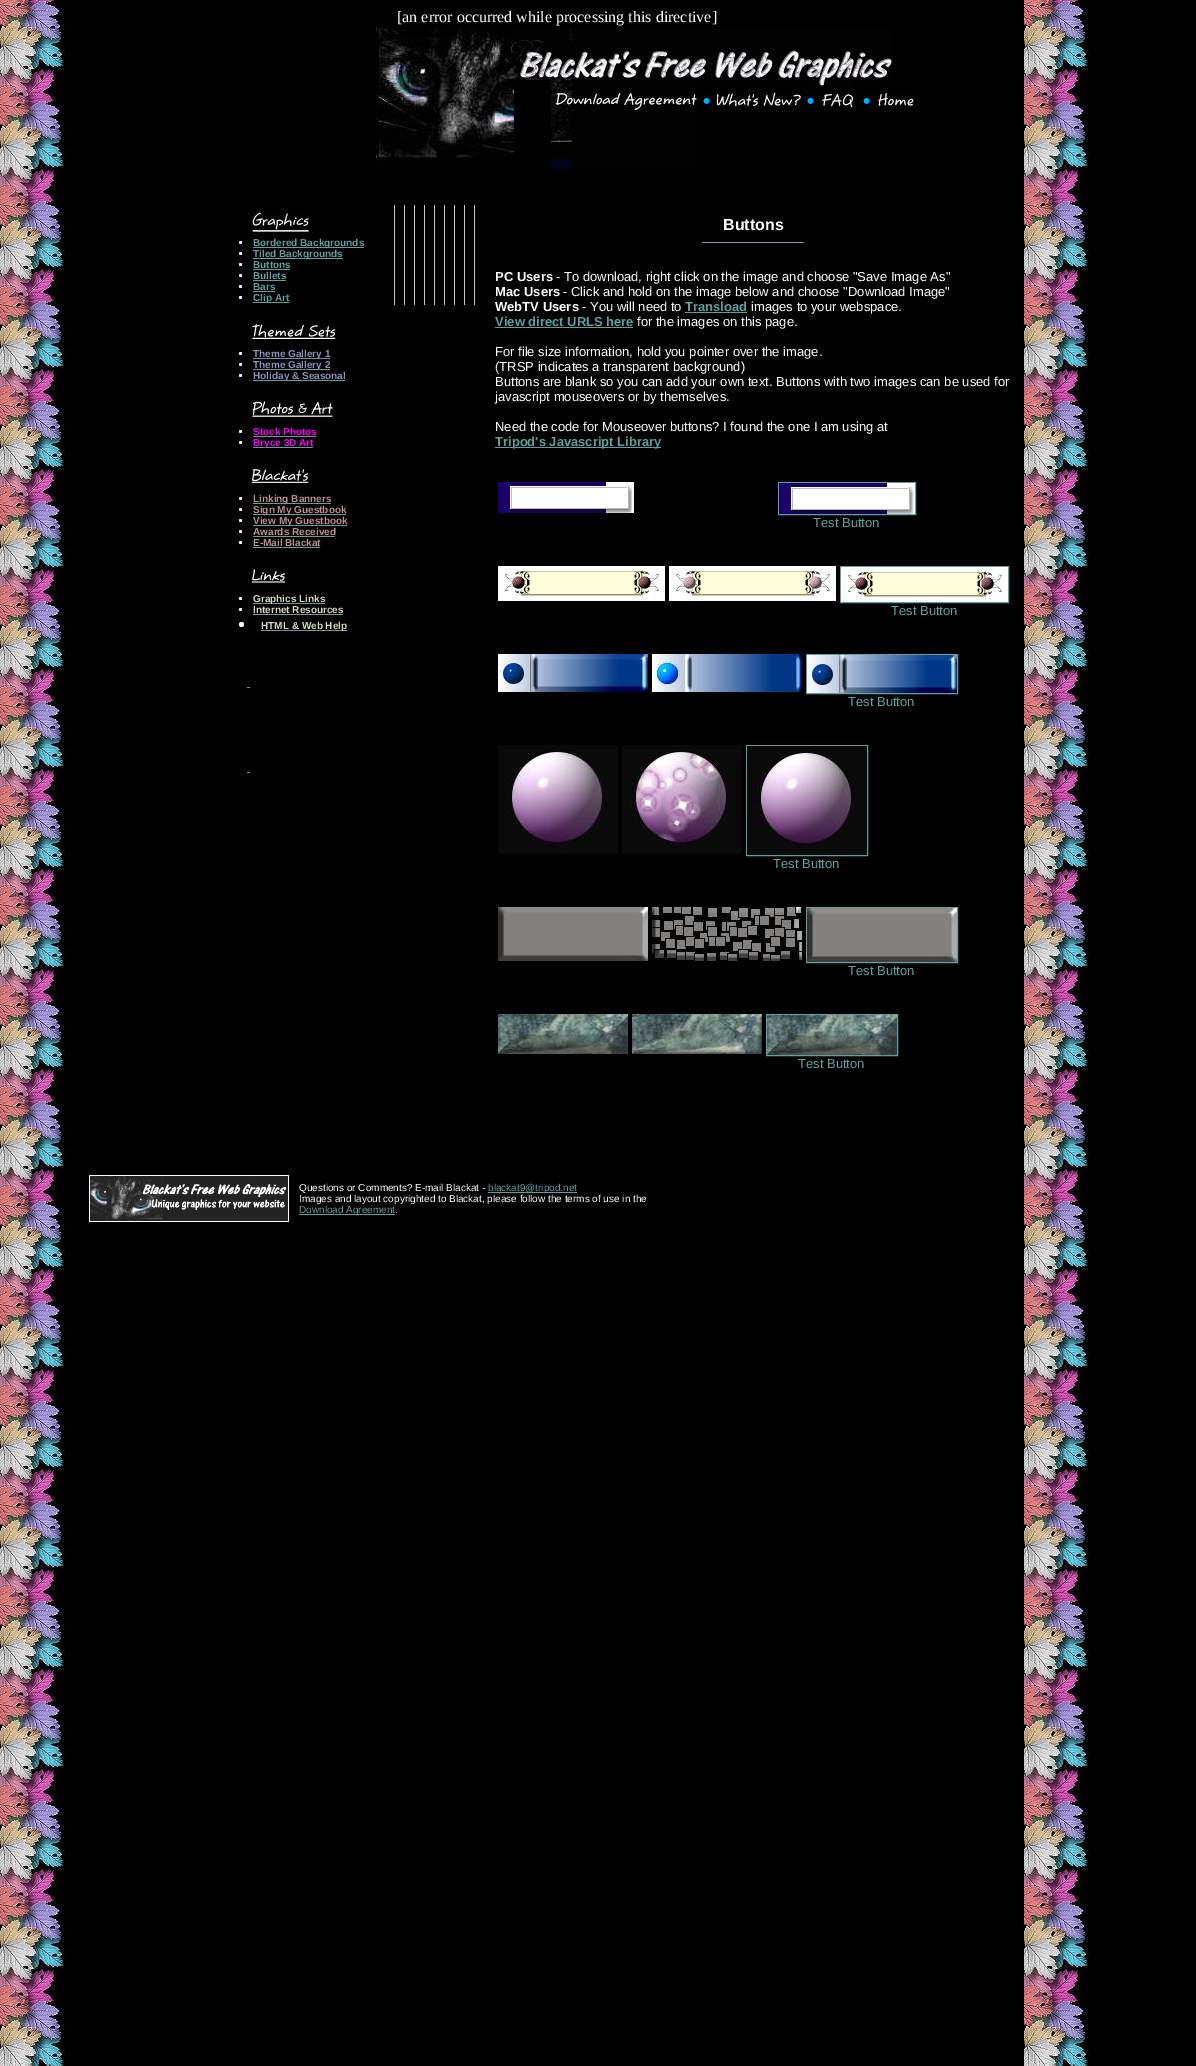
%!PS
<< /PageSize [1196 2066] >> setpagedevice
/f/fill load def
/C { dup -16 bitshift 255 div exch dup -8 bitshift 255 and 255 div exch 255 and 255 div setrgbcolor } def
/F { [ exch dup neg 0 0 3 -1 roll 0 0 ] selectfont } def
/T { moveto show } def
/R { rectfill } def
/O { newpath 0 360 arc closepath } def
/I { 5 dict begin { /h /w /y /x /name } { exch def } forall
  gsave x y translate w h scale
  w h 8 [w 0 0 h 0 0] name (r) file false 3 colorimage grestore end } def
0 2066 translate 1 -1 scale
4 setmiterlimit
16#000000 C
0 0 1196 2066 R
(1.rgb) 0 0 1090 2066 I
/LiberationSerif-Regular 16 F
16#FFFFFF C
([an error occurred while processing this directive]) 397 22 T
(2.rgb) 375 26 139 136 I
(3.rgb) 514 28 378 52 I
(4.rgb) 551 80 146 89 I
(5.rgb) 703 92 98 15 I
(6.rgb) 807 80 46 27 I
(7.rgb) 863 93 51 13 I
(8.rgb) 252 212 57 20 I
240.5 242.5 1.5 O f
16#5F9F9F C
253 247 111 1 R
/LiberationSans-Bold 10 F
(Bordered Backgrounds) 253 246 T
16#FFFFFF C
240.5 253.5 1.5 O f
16#5F9F9F C
253 258 90 1 R
(Tiled Backgrounds) 253 257 T
16#FFFFFF C
240.5 264.5 1.5 O f
16#5F9F9F C
(Buttons) 253 268 T
253 269 37 1 R
16#FFFFFF C
240.5 275.5 1.5 O f
16#5F9F9F C
(Bullets) 253 279 T
253 280 33 1 R
16#FFFFFF C
240.5 286.5 1.5 O f
16#5F9F9F C
(Bars) 253 290 T
253 291 22 1 R
16#FFFFFF C
240.5 297.5 1.5 O f
16#5F9F9F C
253 302 36 1 R
(Clip Art) 253 301 T
(9.rgb) 252 324 84 15 I
16#FFFFFF C
240.5 353.5 1.5 O f
16#5F9F9F C
253 358 77 1 R
16#8F8FBD C
(Theme Gallery 1) 253 357 T
16#FFFFFF C
240.5 364.5 1.5 O f
16#5F9F9F C
253 369 77 1 R
16#8F8FBD C
(Theme Gallery 2) 253 368 T
16#FFFFFF C
240.5 375.5 1.5 O f
16#5F9F9F C
253 380 92 1 R
16#8F8FBD C
(Holiday & Seasonal) 253 379 T
(10.rgb) 252 401 81 16 I
16#FFFFFF C
240.5 431.5 1.5 O f
16#FF00FF C
(Stock Photos) 253 435 T
16#5F9F9F C
253 436 63 1 R
16#FFFFFF C
240.5 442.5 1.5 O f
16#5F9F9F C
253 447 60 1 R
16#FF00FF C
(Bryce 3D Art) 253 446 T
(11.rgb) 251 469 58 14 I
16#FFFFFF C
240.5 498.5 1.5 O f
16#5F9F9F C
253 503 78 1 R
16#BC8F8F C
(Linking Banners) 253 502 T
16#FFFFFF C
240.5 509.5 1.5 O f
16#5F9F9F C
253 514 93 1 R
16#BC8F8F C
(Sign My Guestbook) 253 513 T
16#FFFFFF C
240.5 520.5 1.5 O f
16#5F9F9F C
253 525 94 1 R
16#BC8F8F C
(View My Guestbook) 253 524 T
16#FFFFFF C
240.5 531.5 1.5 O f
16#BC8F8F C
(Awards Received) 253 535 T
16#5F9F9F C
253 536 82 1 R
16#FFFFFF C
240.5 542.5 1.5 O f
16#BC8F8F C
(E-Mail Blackat) 253 546 T
16#5F9F9F C
253 547 67 1 R
(12.rgb) 252 569 33 14 I
16#FFFFFF C
240.5 598.5 1.5 O f
16#5F9F9F C
253 603 72 1 R
16#D8D8BF C
(Graphics Links) 253 602 T
16#FFFFFF C
240.5 609.5 1.5 O f
16#D8D8BF C
(Internet Resources) 253 613 T
16#5F9F9F C
253 614 90 1 R
16#FFFFFF C
241.5 624.5 2.5 O f
16#5F9F9F C
261 630 86 1 R
16#D8D8BF C
(HTML & Web Help) 261 629 T
16#5F9F9F C
247 687 3 1 R
247 772 3 1 R
16#C8C8C8 C
394 205 1 100 R
404 205 1 100 R
414 205 1 100 R
424 205 1 100 R
434 205 1 100 R
444 205 1 100 R
454 205 1 100 R
464 205 1 100 R
474 205 1 100 R
/LiberationSans-Bold 16 F
16#FFFFFF C
(Buttons) 723 230 T
16#8F8FBD C
702 242 102 1 R
/LiberationSans-Bold 13 F
16#FFFFFF C
(PC Users) 495 281 T
/LiberationSans-Regular 13 F
(- To download, right click on the image and choose "Save Image As") 556 281 T
/LiberationSans-Bold 13 F
(Mac Users) 495 296 T
/LiberationSans-Regular 13 F
(- Click and hold on the image below and choose "Download Image") 563 296 T
/LiberationSans-Bold 13 F
(WebTV Users) 495 311 T
/LiberationSans-Regular 13 F
(- You will need to) 582 311 T
/LiberationSans-Bold 13 F
16#5F9F9F C
(Transload) 685 311 T
685 312 62 1 R
/LiberationSans-Regular 13 F
16#FFFFFF C
(images to your webspace.) 751 311 T
/LiberationSans-Bold 13 F
16#5F9F9F C
(View direct URLS here) 495 326 T
495 327 138 1 R
/LiberationSans-Regular 13 F
16#FFFFFF C
(for the images on this page.) 637 326 T
(For file size information, hold you pointer over the image.) 495 356 T
(\(TRSP indicates a transparent background\)) 495 371 T
(Buttons are blank so you can add your own text. Buttons with two images can be used for) 495 386 T
(javascript mouseovers or by themselves.) 495 401 T
(Need the code for Mouseover buttons? I found the one I am using at) 495 431 T
16#5F9F9F C
495 447 166 1 R
/LiberationSans-Bold 13 F
(Tripod's Javascript Library) 495 446 T
(13.rgb) 498 482 136 31 I
778.5 482.5 137 32 rectstroke
(13.rgb) 779 483 136 31 I
/LiberationSans-Regular 13 F
(Test Button) 813 527 T
(14.rgb) 498 566 167 35 I
(15.rgb) 669 566 167 35 I
840.5 566.5 168 36 rectstroke
(14.rgb) 841 567 167 35 I
(Test Button) 891 615 T
(16.rgb) 498 654 150 38 I
(17.rgb) 652 654 150 38 I
806.5 654.5 151 39 rectstroke
(16.rgb) 807 655 150 38 I
(Test Button) 848 706 T
(18.rgb) 498 745 120 109 I
(19.rgb) 622 745 120 109 I
746.5 745.5 121 110 rectstroke
(18.rgb) 747 746 120 109 I
(Test Button) 773 868 T
(20.rgb) 498 907 150 54 I
(21.rgb) 652 907 150 54 I
806.5 907.5 151 55 rectstroke
(20.rgb) 807 908 150 54 I
(Test Button) 848 975 T
(22.rgb) 498 1014 130 40 I
(23.rgb) 632 1014 130 40 I
766.5 1014.5 131 41 rectstroke
(22.rgb) 767 1015 130 40 I
(Test Button) 798 1068 T
(24.rgb) 89 1175 200 47 I
/LiberationSans-Regular 10 F
16#FFFFFF C
(Questions or Comments? E-mail Blackat -) 299 1191 T
16#5F9F9F C
488 1192 89 1 R
(blackat9@tripod.net) 488 1191 T
16#FFFFFF C
(Images and layout copyrighted to Blackat, please follow the terms of use in the) 299 1202 T
16#5F9F9F C
299 1214 96 1 R
(Download Agreement) 299 1213 T
16#FFFFFF C
(.) 395 1213 T
showpage
